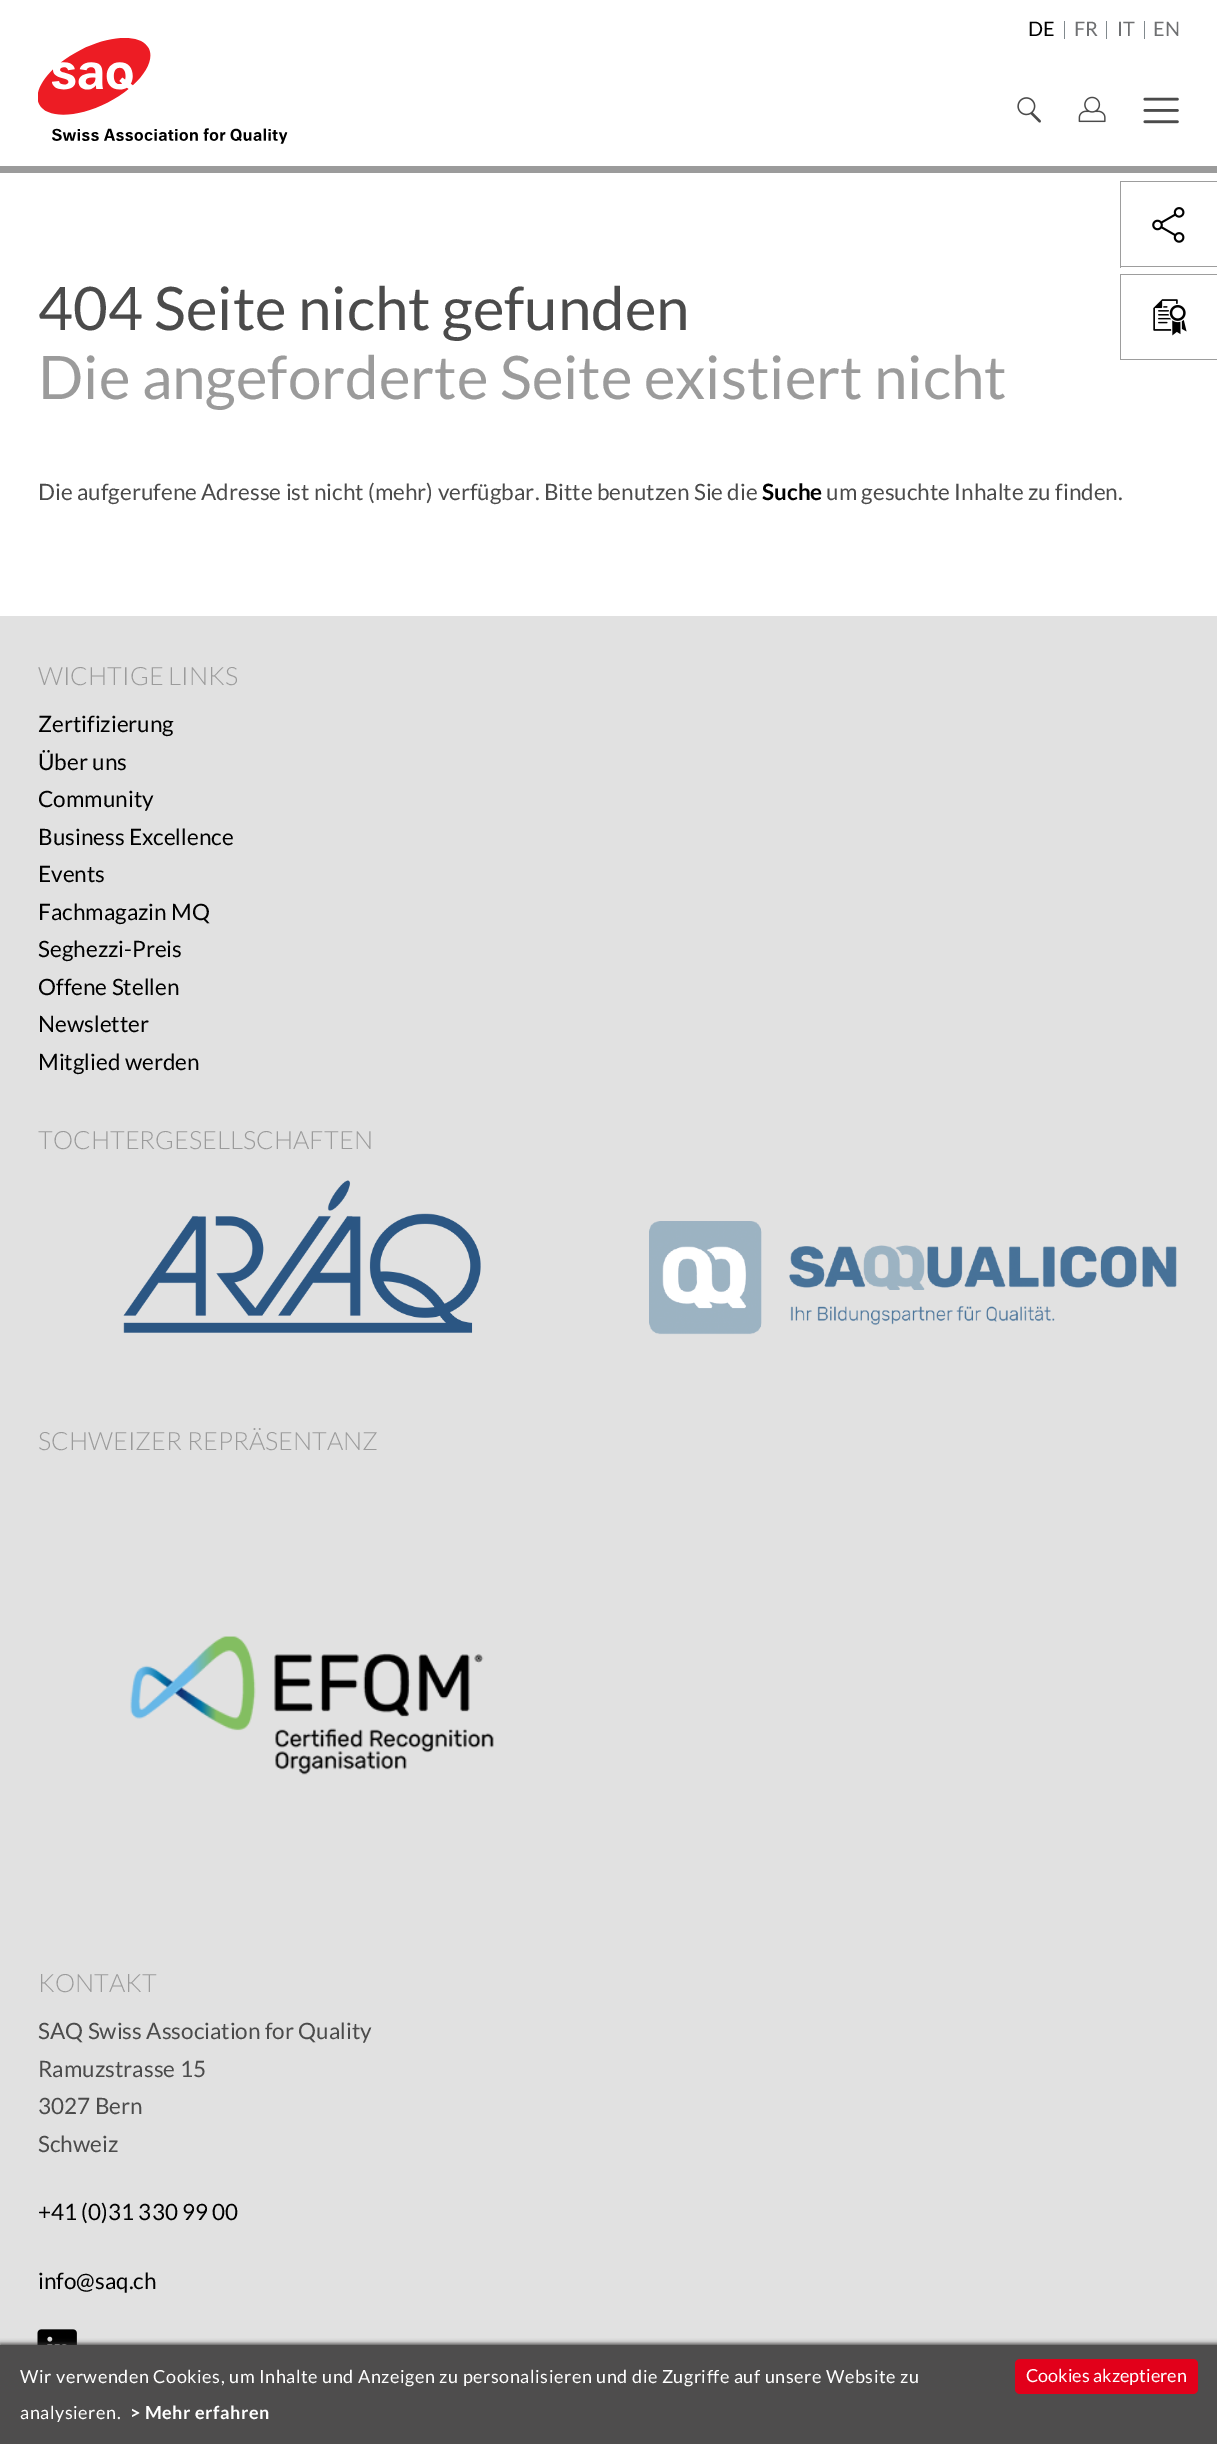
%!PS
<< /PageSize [1217 2444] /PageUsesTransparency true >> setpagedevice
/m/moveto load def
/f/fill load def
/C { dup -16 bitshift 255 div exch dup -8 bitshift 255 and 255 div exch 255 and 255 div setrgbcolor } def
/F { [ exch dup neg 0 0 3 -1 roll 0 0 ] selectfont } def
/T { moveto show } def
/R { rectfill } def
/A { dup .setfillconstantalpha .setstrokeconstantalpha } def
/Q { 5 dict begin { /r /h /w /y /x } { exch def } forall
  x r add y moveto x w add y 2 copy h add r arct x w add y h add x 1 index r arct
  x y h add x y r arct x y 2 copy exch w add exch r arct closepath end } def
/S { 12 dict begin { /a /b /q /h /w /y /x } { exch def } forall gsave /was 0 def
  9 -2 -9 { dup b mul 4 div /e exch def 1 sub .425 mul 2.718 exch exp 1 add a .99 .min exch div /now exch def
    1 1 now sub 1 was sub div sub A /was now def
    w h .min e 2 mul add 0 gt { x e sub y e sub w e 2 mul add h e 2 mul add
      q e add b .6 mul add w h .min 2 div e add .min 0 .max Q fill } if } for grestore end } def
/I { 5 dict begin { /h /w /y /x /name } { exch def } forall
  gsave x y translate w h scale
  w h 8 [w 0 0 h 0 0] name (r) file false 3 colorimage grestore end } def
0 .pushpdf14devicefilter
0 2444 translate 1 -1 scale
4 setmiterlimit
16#FFFFFF C
0 0 1217 2444 R
16#9B9B9B C
0 166 1217 7 R
16#81898D C
1064 21 1 18 R
/Lato-Regular 20 F
16#000000 C
(DE) 1028 36 T
16#81898D C
1106 21 1 18 R
16#6F7072 C
(FR) 1074 36 T
16#81898D C
1144 21 1 18 R
16#6F7072 C
(IT) 1117 36 T
(EN) 1153 36 T
(1.rgb) 1017 97 24 26 I
(2.rgb) 1078 96 28 27 I
(3.rgb) 1143 97 36 27 I
(4.rgb) 38 38 250 106 I
16#9D9D9D C
1120 181 97 1 R
1120 266 97 1 R
1120 181 1 87 R
(5.rgb) 1152 207 33 36 I
1120 274 97 1 R
1120 359 97 1 R
1120 274 1 86 R
(6.rgb) 1153 299 34 37 I
/Lato-Regular 60 F
16#4B4B4B C
(404 Seite nicht gefunden) 38 330 T
16#9B9B9B C
(Die angeforderte Seite existiert nicht) 38 399 T
/Lato-Regular 22.5 F
16#4B4B4B C
(Die aufgerufene Adresse ist nicht \(mehr\) verfügbar. Bitte benutzen Sie die) 38 500 T
/Lato-Bold 22.5 F
16#000000 C
(Suche) 762 500 T
/Lato-Regular 22.5 F
16#4B4B4B C
(um gesuchte Inhalte zu finden.) 826 500 T
16#E1E1E1 C
0 616 1217 1729 R
/Lato-Light 25.25 F
16#9B9B9B C
(WICHTIGE LINKS) 38 685 T
/Lato-Regular 22.5 F
16#000000 C
(Zertifizierung) 38 732 T
(Über uns) 38 770 T
(Community) 38 807 T
(Business Excellence) 38 845 T
(Events) 38 882 T
(Fachmagazin MQ) 38 920 T
(Seghezzi-Preis) 38 957 T
(Offene Stellen) 38 995 T
(Newsletter) 38 1032 T
(Mitglied werden) 38 1070 T
/Lato-Light 25.25 F
16#9B9B9B C
(TOCHTERGESELLSCHAFTEN) 38 1149 T
(7.rgb) 123 1180 358 153 I
(8.rgb) 649 1221 528 114 I
(SCHWEIZER REPRÄSENTANZ) 38 1450 T
(9.rgb) 130 1636 364 139 I
(KONTAKT) 38 1992 T
/Lato-Regular 22.5 F
16#4B4B4B C
(SAQ Swiss Association for Quality) 38 2039 T
(Ramuzstrasse 15) 38 2077 T
(3027 Bern) 38 2114 T
(Schweiz) 38 2152 T
16#000000 C
(+41 \(0\)31 330 99 00) 38 2220 T
(info@saq.ch) 38 2289 T
(10.rgb) 37 2329 40 16 I
16#363535 C
0 2344 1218 100 0 2.5 1 S
16#4E4D4D C
0 2345 1217 99 R
/Lato-Regular 18 F
16#FFFFFF C
20 2383 m .54 0 (Wir verwenden Cookies, um Inhalte und Anzeigen zu personalisieren und die Zugriffe auf unsere Website zu) ashow
20 2419 m .54 0 (analysieren.) ashow
/Lato-Bold 18 F
130 2419 m .54 0 (> Mehr erfahren) ashow
16#E2001A C
1015 2359 183 35 5 Q f
/Lato-Regular 18 F
16#FFFFFF C
(Cookies akzeptieren) 1026 2382 T
.poppdf14devicefilter showpage
